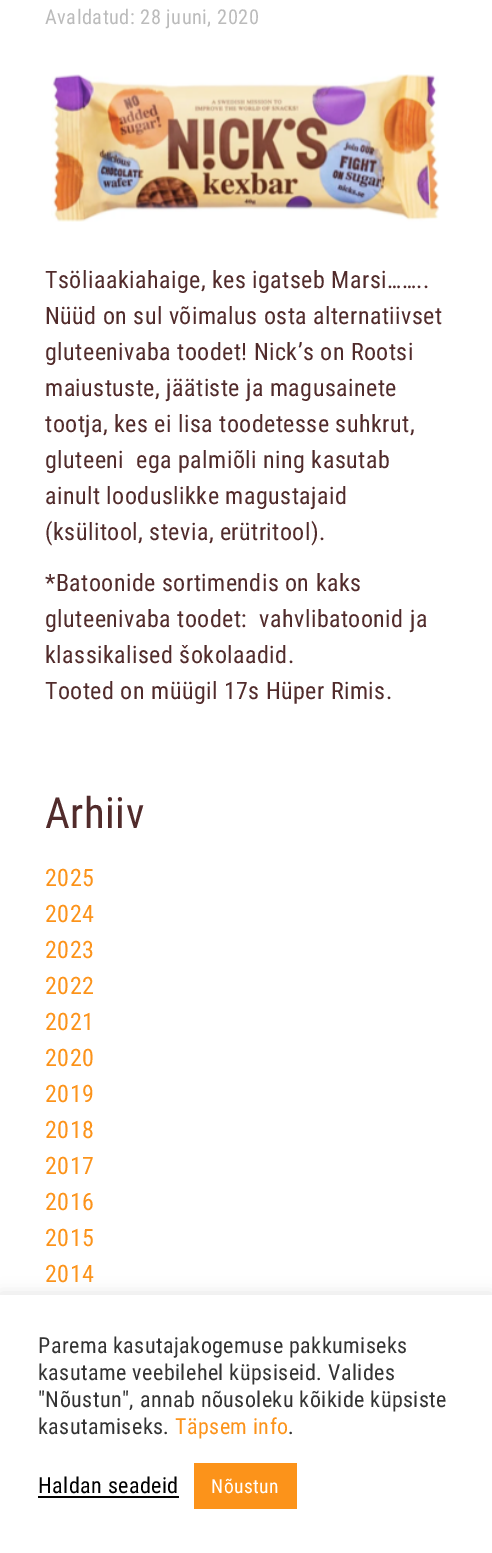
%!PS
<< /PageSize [492 1553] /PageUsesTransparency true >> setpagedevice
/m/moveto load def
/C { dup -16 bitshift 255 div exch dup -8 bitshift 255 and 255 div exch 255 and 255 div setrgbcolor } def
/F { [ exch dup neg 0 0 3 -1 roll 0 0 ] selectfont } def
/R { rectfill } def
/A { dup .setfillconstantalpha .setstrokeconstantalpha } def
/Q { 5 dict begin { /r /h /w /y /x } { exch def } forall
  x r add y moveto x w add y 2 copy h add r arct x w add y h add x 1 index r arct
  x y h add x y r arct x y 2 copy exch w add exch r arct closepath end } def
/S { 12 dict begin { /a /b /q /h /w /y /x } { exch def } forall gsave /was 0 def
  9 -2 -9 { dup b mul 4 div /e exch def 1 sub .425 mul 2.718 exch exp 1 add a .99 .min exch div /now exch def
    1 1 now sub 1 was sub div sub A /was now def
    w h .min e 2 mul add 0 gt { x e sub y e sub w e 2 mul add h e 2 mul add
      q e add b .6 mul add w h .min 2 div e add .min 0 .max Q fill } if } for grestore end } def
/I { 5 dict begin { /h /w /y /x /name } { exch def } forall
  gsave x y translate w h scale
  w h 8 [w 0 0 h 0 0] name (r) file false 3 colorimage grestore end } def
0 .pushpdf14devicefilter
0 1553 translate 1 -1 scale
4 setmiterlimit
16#FFFFFF C
0 0 492 1553 R
/RobotoCondensed-Regular 20.4 F
16#BBBBBB C
45 24 m .45 0 (Avaldatud: 28 juuni, 2020) ashow
(1.rgb) 51 74 389 148 I
/RobotoCondensed-Regular 24 F
16#512B2B C
45 288 m .45 0 (Tsöliaakiahaige, kes igatseb Marsi……..) ashow
45 324 m .45 0 (Nüüd on sul võimalus osta alternatiivset) ashow
45 360 m .45 0 (gluteenivaba toodet! Nick’s on Rootsi) ashow
45 396 m .45 0 (maiustuste, jäätiste ja magusainete) ashow
45 432 m .45 0 (tootja, kes ei lisa toodetesse suhkrut,) ashow
45 468 m .45 0 (gluteeni  ega palmiõli ning kasutab) ashow
45 504 m .45 0 (ainult looduslikke magustajaid) ashow
45 540 m .45 0 (\(ksülitool, stevia, erütritool\).) ashow
45 591 m .45 0 (*Batoonide sortimendis on kaks) ashow
45 627 m .45 0 (gluteenivaba toodet:  vahvlibatoonid ja) ashow
45 663 m .45 0 (klassikalised šokolaadid.) ashow
45 699 m .45 0 (Tooted on müügil 17s Hüper Rimis.) ashow
/RobotoCondensed-Regular 43 F
45 828 m .45 0 (Arhiiv) ashow
/RobotoCondensed-Regular 24 F
16#FC931A C
45 886 m .45 0 (2025) ashow
45 922 m .45 0 (2024) ashow
45 958 m .45 0 (2023) ashow
45 994 m .45 0 (2022) ashow
45 1030 m .45 0 (2021) ashow
45 1066 m .45 0 (2020) ashow
45 1102 m .45 0 (2019) ashow
45 1138 m .45 0 (2018) ashow
45 1174 m .45 0 (2017) ashow
45 1210 m .45 0 (2016) ashow
45 1246 m .45 0 (2015) ashow
45 1282 m .45 0 (2014) ashow
16#ACABAB C
0 1293 492 260 0 7.5 .3 S
16#FFFFFF C
0 1295 492 258 R
/RobotoCondensed-Regular 22 F
16#333333 C
38 1353 m .45 0 (Parema kasutajakogemuse pakkumiseks) ashow
38 1380 m .45 0 (kasutame veebilehel küpsiseid. Valides) ashow
38 1407 m .45 0 ("Nõustun", annab nõusoleku kõikide küpsiste) ashow
38 1434 m .45 0 (kasutamiseks.) ashow
16#FC931A C
175 1434 m .45 0 (Täpsem info) ashow
16#333333 C
288 1434 m .45 0 (.) ashow
16#000000 C
38 1493 m .45 0 (Haldan seadeid) ashow
38 1496 141 2 R
16#FC931A C
194 1463 103 46 R
/RobotoCondensed-Regular 19.5 F
16#FFFFFF C
211 1493 m .45 0 (Nõustun) ashow
.poppdf14devicefilter showpage
